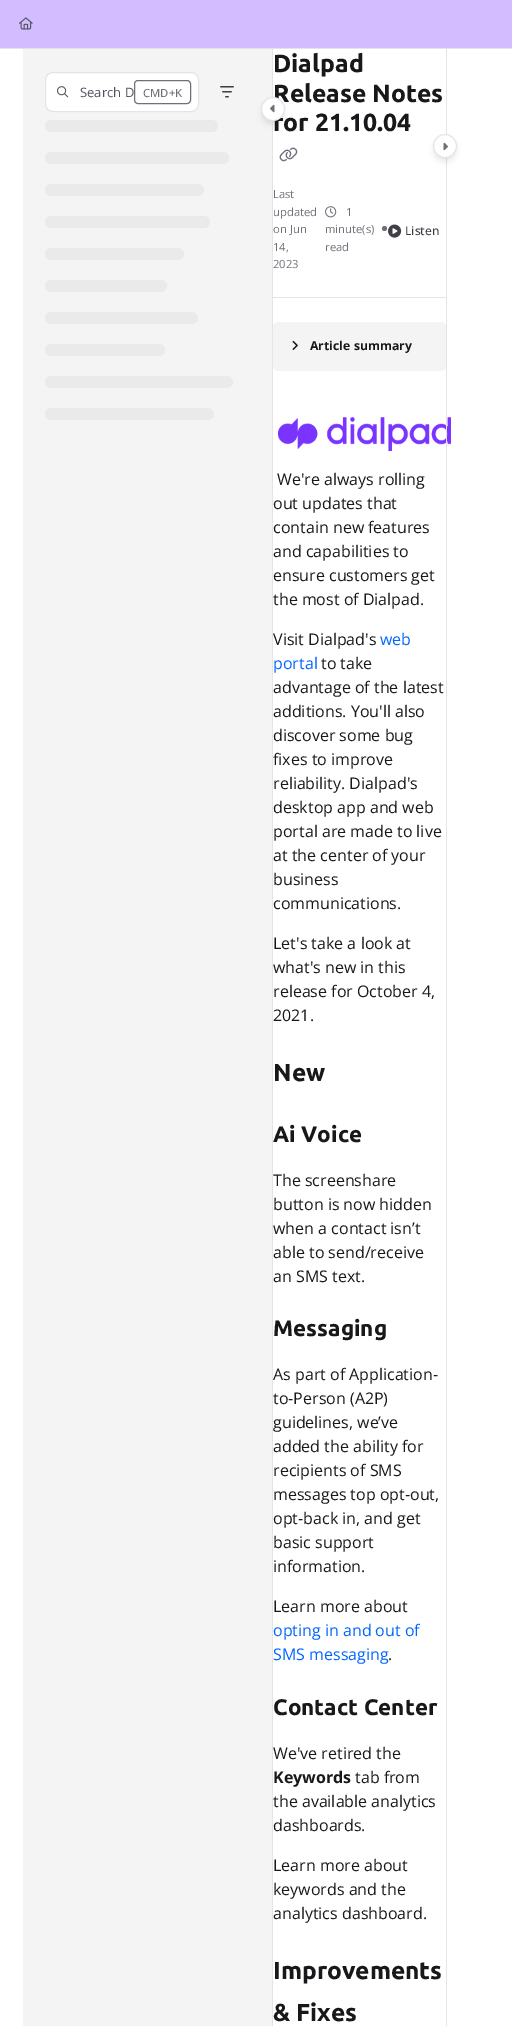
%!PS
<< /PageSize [512 2026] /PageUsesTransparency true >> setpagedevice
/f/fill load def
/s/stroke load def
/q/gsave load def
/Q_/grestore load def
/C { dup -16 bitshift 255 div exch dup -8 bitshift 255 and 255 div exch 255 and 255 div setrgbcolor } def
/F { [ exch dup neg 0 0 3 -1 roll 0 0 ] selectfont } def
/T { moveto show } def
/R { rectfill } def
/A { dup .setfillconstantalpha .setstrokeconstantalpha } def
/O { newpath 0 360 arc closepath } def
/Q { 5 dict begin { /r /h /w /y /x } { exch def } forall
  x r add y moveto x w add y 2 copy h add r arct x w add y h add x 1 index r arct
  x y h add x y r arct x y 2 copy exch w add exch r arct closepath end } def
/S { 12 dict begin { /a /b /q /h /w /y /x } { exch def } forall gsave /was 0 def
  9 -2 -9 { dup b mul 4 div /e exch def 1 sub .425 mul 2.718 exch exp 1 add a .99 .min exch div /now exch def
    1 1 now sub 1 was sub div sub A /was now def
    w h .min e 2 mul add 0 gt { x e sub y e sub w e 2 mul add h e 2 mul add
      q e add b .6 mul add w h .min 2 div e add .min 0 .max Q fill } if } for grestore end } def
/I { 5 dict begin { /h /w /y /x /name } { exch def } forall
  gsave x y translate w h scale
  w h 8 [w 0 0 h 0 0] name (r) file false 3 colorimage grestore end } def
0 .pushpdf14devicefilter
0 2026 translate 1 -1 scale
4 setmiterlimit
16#FFFFFF C
0 0 512 2026 R
16#E4E4E7 C
0 48 512 1 R
16#D3BCFF C
0 0 512 48 R
(1.rgb) 19 17 14 13 I
/OpenSans-Regular 16 F
16#18181B C
(the most of Dialpad.) 273 605 T
(Visit Dialpad's) 273 645 T
(fixes to improve) 273 765 T
(what's new in this) 273 973 T
/Ubuntu-Bold 22.5 F
(Ai Voice) 273 1142 T
/OpenSans-Regular 16 F
(The screenshare) 273 1186 T
(when a contact isn’t) 273 1234 T
(As part of Application-) 273 1380 T
(to-Person \(A2P\)) 273 1404 T
(guidelines, we’ve) 273 1428 T
(We've retired the) 273 1759 T
(the available analytics) 273 1807 T
16#E4E4E7 C
272 49 1 1977 R
16#F4F4F5 C
23 49 249 1977 R
16#FFFFFF C
45.5 72.5 153 39 7.5 Q q f Q_
16#E4E4E7 C
s
(2.rgb) 57 86 12 12 I
/OpenSans-Regular 13 F
16#51525C C
(Search D) 80 97 T
16#70707A C
134.5 80.5 56 23 3.5 Q s
/OpenSans-Medium 11.25 F
(CMD+K) 143 97 T
(3.rgb) 220 86 14 12 I
16#000000 C
262 102 22 22 11 3 .1 S
/Ubuntu-Bold 24.75 F
16#18181B C
(Release Notes) 273 102 T
(for 21.10.04) 273 131 T
16#FFFFFF C
273 109 11.5 O q f Q_
16#E4E4E7 C
s
(4.rgb) 270 104 5 9 I
16#EAEAEB C
45 120 173 12 6 Q f
45 152 184 12 6 Q f
45 184 159 12 6 Q f
45 216 165 12 6 Q f
45 248 139 12 6 Q f
45 280 122 12 6 Q f
45 312 153 12 6 Q f
45 344 120 12 6 Q f
45 376 188 12 6 Q f
45 408 169 12 6 Q f
16#18181B C
(Dialpad) 273 72 T
(5.rgb) 279 147 19 15 I
/OpenSans-Regular 11.25 F
16#70707A C
(Last) 273 198 T
(updated) 273 216 T
(on Jun) 273 233 T
(14,) 273 251 T
(2023) 273 268 T
(6.rgb) 325 206 12 12 I
(1) 346 216 T
(minute\(s\)) 325 233 T
(read) 325 251 T
384.5 228.5 2.5 O f
(7.rgb) 388 224 14 14 I
/OpenSans-Medium 12 F
16#3F3F46 C
(Listen) 405 235 T
16#E4E4E7 C
273 297 173 1 R
16#F4F4F5 C
273 322 173 49 5 Q f
(8.rgb) 292 340 6 10 I
/OpenSans-Bold 12.25 F
16#18181B C
(Article summary) 310 350 T
(9.rgb) 278 417 173 34 I
/OpenSans-Regular 16 F
(We're always rolling) 277 485 T
(out updates that) 273 509 T
(contain new features) 273 533 T
(and capabilities to) 273 557 T
(ensure customers get) 273 581 T
16#0065FF C
(web) 380 645 T
(portal) 273 669 T
16#18181B C
(to take) 321 669 T
(advantage of the latest) 273 693 T
(additions. You'll also) 273 717 T
(discover some bug) 273 741 T
(reliability. Dialpad's) 273 789 T
(desktop app and web) 273 813 T
(portal are made to live) 273 837 T
(at the center of your) 273 861 T
(business) 273 885 T
(communications.) 273 909 T
(Let's take a look at) 273 949 T
(release for October 4,) 273 997 T
(2021.) 273 1021 T
/Ubuntu-Bold 24.5 F
(New) 273 1081 T
/OpenSans-Regular 16 F
(button is now hidden) 273 1210 T
(able to send/receive) 273 1258 T
(an SMS text.) 273 1282 T
/Ubuntu-Bold 22.5 F
(Messaging) 273 1336 T
/OpenSans-Regular 16 F
(added the ability for) 273 1452 T
(recipients of SMS) 273 1476 T
(messages top opt-out,) 273 1500 T
(opt-back in, and get) 273 1524 T
(basic support) 273 1548 T
(information.) 273 1572 T
(Learn more about) 273 1612 T
16#0065FF C
(opting in and out of) 273 1636 T
(SMS messaging) 273 1660 T
16#18181B C
(.) 388 1660 T
/Ubuntu-Bold 22.5 F
(Contact Center) 273 1715 T
/OpenSans-Bold 16 F
(Keywords) 273 1783 T
/OpenSans-Regular 16 F
(tab from) 355 1783 T
(dashboards.) 273 1831 T
(Learn more about) 273 1871 T
(keywords and the) 273 1895 T
(analytics dashboard.) 273 1919 T
/Ubuntu-Bold 24.5 F
(Improvements) 273 1979 T
(& Fixes) 273 2021 T
16#E4E4E7 C
446 49 1 1977 R
16#000000 C
434 139 22 22 11 3 .1 S
16#FFFFFF C
445 146 11.5 O q f Q_
16#E4E4E7 C
s
(10.rgb) 443 142 5 9 I
.poppdf14devicefilter showpage
